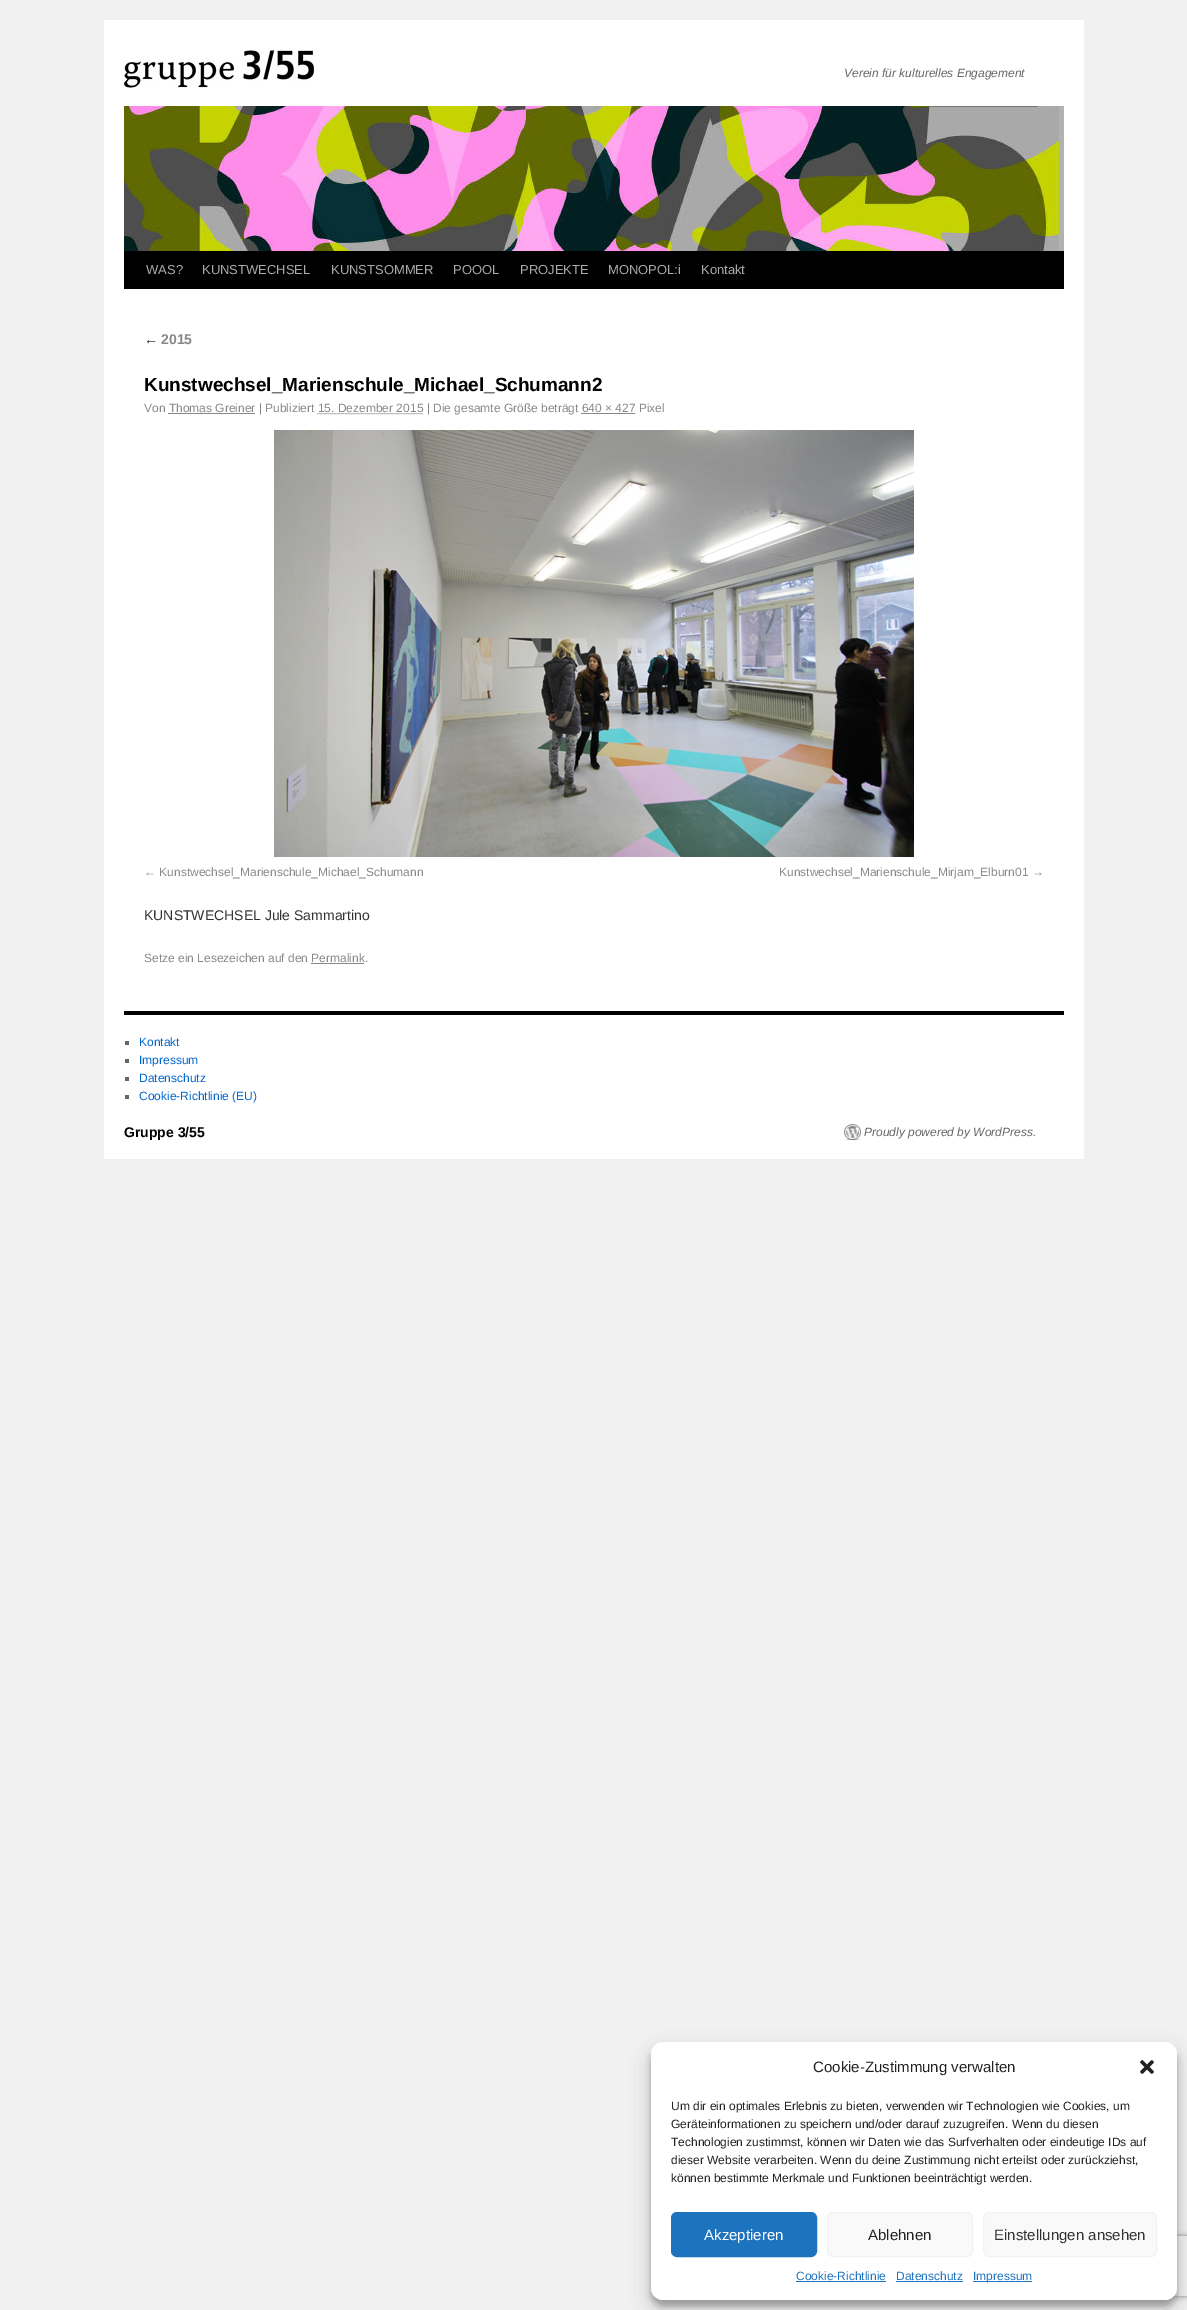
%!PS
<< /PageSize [1187 2310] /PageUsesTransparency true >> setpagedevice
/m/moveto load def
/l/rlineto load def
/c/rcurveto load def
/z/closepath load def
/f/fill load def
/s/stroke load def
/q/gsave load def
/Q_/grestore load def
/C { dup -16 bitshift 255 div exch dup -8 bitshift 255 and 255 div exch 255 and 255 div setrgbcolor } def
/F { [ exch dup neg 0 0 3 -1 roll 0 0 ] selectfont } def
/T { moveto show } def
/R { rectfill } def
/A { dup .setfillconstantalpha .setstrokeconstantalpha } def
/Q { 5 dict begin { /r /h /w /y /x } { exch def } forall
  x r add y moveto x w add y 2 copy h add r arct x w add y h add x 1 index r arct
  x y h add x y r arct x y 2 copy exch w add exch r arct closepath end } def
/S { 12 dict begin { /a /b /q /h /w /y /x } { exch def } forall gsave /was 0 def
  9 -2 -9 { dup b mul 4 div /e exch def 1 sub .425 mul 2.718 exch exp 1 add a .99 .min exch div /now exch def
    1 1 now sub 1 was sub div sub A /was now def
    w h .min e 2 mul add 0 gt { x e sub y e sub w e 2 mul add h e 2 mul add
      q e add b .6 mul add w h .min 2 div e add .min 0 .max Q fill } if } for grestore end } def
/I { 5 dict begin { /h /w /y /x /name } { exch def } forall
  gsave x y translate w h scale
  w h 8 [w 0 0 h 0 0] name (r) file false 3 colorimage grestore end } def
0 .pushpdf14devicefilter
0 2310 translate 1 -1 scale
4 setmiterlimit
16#F1F1F1 C
0 0 1187 2310 R
16#FFFFFF C
104 20 980 1139 R
(1.rgb) 124 50 190 38 I
/LiberationSans-Italic 12 F
16#666666 C
(Verein für kulturelles Engagement) 844 77 T
(2.rgb) 124 106 940 145 I
16#000000 C
124 251 940 38 R
/LiberationSans-Regular 13 F
16#AAAAAA C
(WAS?) 146 274 T
(KUNSTWECHSEL) 202 274 T
(KUNSTSOMMER) 331 274 T
(POOOL) 453 274 T
(PROJEKTE) 520 274 T
(MONOPOL:i) 608 274 T
(Kontakt) 701 274 T
/LiberationSans-Italic 14 F
16#333333 C
(←) 144 344 T
/LiberationSans-Bold 14 F
16#888888 C
(2015) 161 344 T
/LiberationSans-Bold 19 F
16#000000 C
(Kunstwechsel_Marienschule_Michael_Schumann2) 144 391 T
/LiberationSans-Regular 12 F
16#888888 C
(Von Thomas Greiner | Publiziert 15. Dezember 2015 | Die gesamte Größe beträgt 640 × 427 Pixel) 144 412 T
168 413 87 1 R
[1 1] 0 setdash
317.5 413.5 m 105.5 0 l s
581 413 54 1 R
(3.rgb) 274 430 640 427 I
(← Kunstwechsel_Marienschule_Michael_Schumann) 144 876 T
(Kunstwechsel_Marienschule_Mirjam_Elburn01 →) 779 876 T
/LiberationSans-Regular 14 F
16#333333 C
(KUNSTWECHSEL Jule Sammartino) 144 920 T
/LiberationSans-Regular 12 F
16#888888 C
(Setze ein Lesezeichen auf den Permalink.) 144 962 T
311 963 53 1 R
16#000000 C
124 1011 940 4 R
16#666666 C
125 1041 4 4 R
16#0066CC C
(Kontakt) 139 1046 T
16#666666 C
125 1059 4 4 R
16#0066CC C
(Impressum) 139 1064 T
16#666666 C
125 1077 4 4 R
16#0066CC C
(Datenschutz) 139 1082 T
16#666666 C
125 1095 4 4 R
16#0066CC C
(Cookie-Richtlinie \(EU\)) 139 1100 T
/LiberationSans-Bold 14 F
16#000000 C
(Gruppe 3/55) 124 1137 T
(4.rgb) 844 1124 17 16 I
/LiberationSans-Italic 12 F
16#666666 C
(Proudly powered by WordPress.) 864 1136 T
16#000000 C
651 2048 526 258 12 3 .23 S
651 2052 526 258 12 10 .19 S
q
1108 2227 m 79 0 l 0 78 l -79 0 l z 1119 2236 m 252 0 l 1 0 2 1 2 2 c 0 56 l 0 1 -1 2 -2 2 c -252 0 l -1 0 -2 -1 -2 -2 c 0 -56 l 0 -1 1 -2 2 -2 c z eoclip newpath
16#808080 C
1117 2236 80 60 2 2.5 1 S
Q_
16#FFFFFF C
651 2042 526 258 12 Q f
/LiberationSans-Regular 15 F
16#222222 C
(Cookie-Zustimmung verwalten) 813 2072 T
(5.rgb) 1140 2060 14 14 I
/LiberationSans-Regular 12 F
(Um dir ein optimales Erlebnis zu bieten, verwenden wir Technologien wie Cookies, um) 671 2110 T
(Geräteinformationen zu speichern und/oder darauf zuzugreifen. Wenn du diesen) 671 2128 T
(Technologien zustimmst, können wir Daten wie das Surfverhalten oder eindeutige IDs auf) 671 2146 T
(dieser Website verarbeiten. Wenn du deine Zustimmung nicht erteilst oder zurückziehst,) 671 2164 T
(können bestimmte Merkmale und Funktionen beeinträchtigt werden.) 671 2182 T
16#1E73BE C
671.5 2212.5 145 44 5.5 Q q f Q_
[] 0 setdash
s
/LiberationSans-Regular 15 F
16#FFFFFF C
(Akzeptieren) 704 2240 T
16#F9F9F9 C
827.5 2212.5 145 44 5.5 Q q f Q_
16#F2F2F2 C
s
16#222222 C
(Ablehnen) 868 2240 T
16#F9F9F9 C
983.5 2212.5 173 44 5.5 Q q f Q_
16#F2F2F2 C
s
16#333333 C
(Einstellungen ansehen) 994 2240 T
/LiberationSans-Regular 12 F
16#1E73BE C
(Cookie-Richtlinie) 796 2280 T
796 2281 90 1 R
(Datenschutz) 896 2280 T
896 2281 67 1 R
973 2281 59 1 R
(Impressum) 973 2280 T
.poppdf14devicefilter showpage
